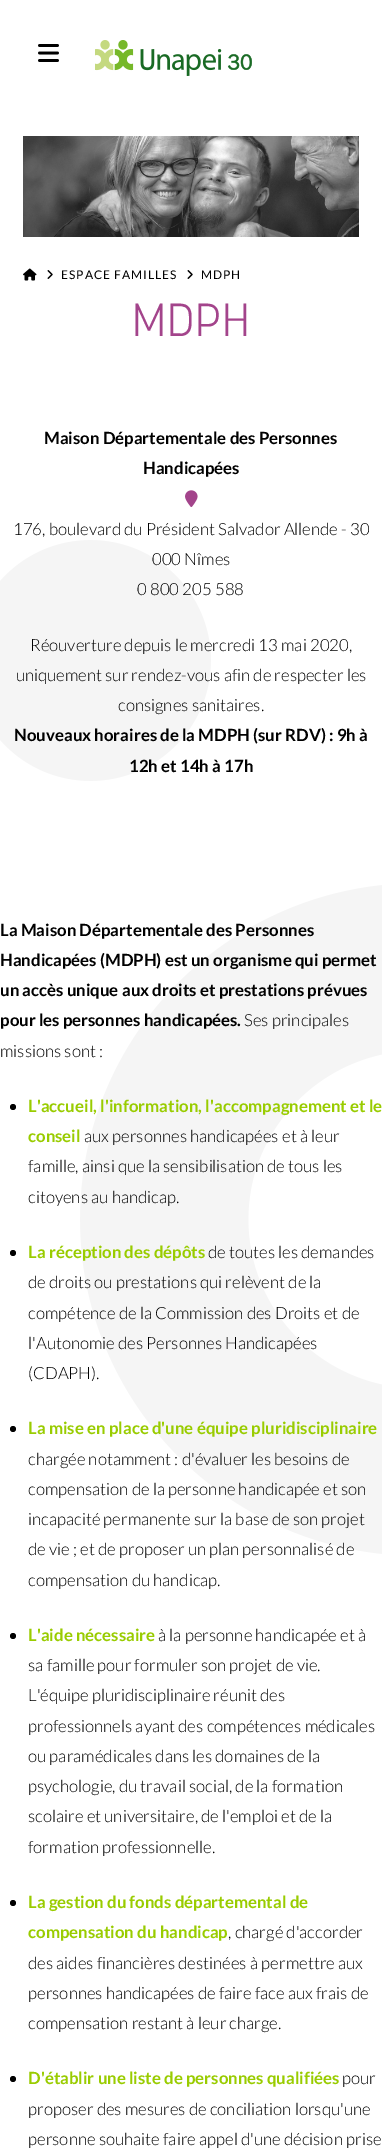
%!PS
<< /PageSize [382 2148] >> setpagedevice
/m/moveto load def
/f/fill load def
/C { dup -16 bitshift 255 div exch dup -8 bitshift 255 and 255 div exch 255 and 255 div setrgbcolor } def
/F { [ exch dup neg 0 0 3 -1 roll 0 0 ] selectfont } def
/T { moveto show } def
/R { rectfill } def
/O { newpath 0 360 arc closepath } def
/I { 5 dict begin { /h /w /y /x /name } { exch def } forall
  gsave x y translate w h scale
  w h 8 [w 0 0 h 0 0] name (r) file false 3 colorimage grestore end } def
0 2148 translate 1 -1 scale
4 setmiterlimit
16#FFFFFF C
0 0 382 2148 R
(1.rgb) 38 44 21 18 I
(2.rgb) 95 40 157 36 I
(3.rgb) 23 136 336 101 I
(4.rgb) 23 268 14 13 I
(5.rgb) 47 270 6 9 I
/Lato-Regular 12 F
16#000000 C
61 279 m 1 0 (ESPACE FAMILLES) ashow
(5.rgb) 187 270 6 9 I
201 279 m 1 0 (MDPH) ashow
/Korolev-Light 46 F
16#A3448B C
132 336 m 1 0 (MDPH) ashow
/Lato-Bold 16.8 F
16#000000 C
(Maison Départementale des Personnes) 44 444 T
(Handicapées) 143 474 T
(6.rgb) 185 490 13 17 I
/Lato-Light 16.8 F
(176, boulevard du Président Salvador Allende - 30) 13 535 T
(7.rgb) 0 540 211 241 I
(000 Nîmes) 152 565 T
(0 800 205 588) 137 595 T
(Réouverture depuis le mercredi 13 mai 2020,) 30 651 T
(uniquement sur rendez-vous afin de respecter les) 16 681 T
(consignes sanitaires.) 118 711 T
/Lato-Bold 16.8 F
(Nouveaux horaires de la MDPH \(sur RDV\) : 9h à) 14 741 T
(12h et 14h à 17h) 129 772 T
(8.rgb) 80 885 302 669 I
(La Maison Départementale des Personnes) 0 936 T
(Handicapées \(MDPH\) est un organisme qui permet) 0 966 T
(un accès unique aux droits et prestations prévues) 0 996 T
(pour les personnes handicapées.) 0 1026 T
/Lato-Light 16.8 F
(Ses principales) 244 1026 T
(missions sont :) 0 1057 T
13 1107 3 O f
/Lato-Bold 16.8 F
16#99CC00 C
(L'accueil, l'information, l'accompagnement et le) 28 1112 T
(conseil) 28 1142 T
/Lato-Light 16.8 F
16#000000 C
(aux personnes handicapées et à leur) 84 1142 T
(famille, ainsi que la sensibilisation de tous les) 28 1172 T
(citoyens au handicap.) 28 1203 T
13 1253 3 O f
/Lato-Bold 16.8 F
16#99CC00 C
(La réception des dépôts) 28 1258 T
/Lato-Light 16.8 F
16#000000 C
(de toutes les demandes) 208 1258 T
(de droits ou prestations qui relèvent de la) 28 1288 T
(compétence de la Commission des Droits et de) 28 1319 T
(l'Autonomie des Personnes Handicapées) 28 1349 T
(\(CDAPH\).) 28 1379 T
13 1429 3 O f
/Lato-Bold 16.8 F
16#99CC00 C
(La mise en place d'une équipe pluridisciplinaire) 28 1434 T
/Lato-Light 16.8 F
16#000000 C
(chargée notamment : d'évaluer les besoins de) 28 1465 T
(compensation de la personne handicapée et son) 28 1495 T
(incapacité permanente sur la base de son projet) 28 1525 T
(de vie ; et de proposer un plan personnalisé de) 28 1555 T
(compensation du handicap.) 28 1586 T
13 1636 3 O f
/Lato-Bold 16.8 F
16#99CC00 C
(L'aide nécessaire) 28 1641 T
/Lato-Light 16.8 F
16#000000 C
(à la personne handicapée et à) 158 1641 T
(sa famille pour formuler son projet de vie.) 28 1671 T
(L'équipe pluridisciplinaire réunit des) 28 1701 T
(professionnels ayant des compétences médicales) 28 1732 T
(ou paramédicales dans les domaines de la) 28 1762 T
(psychologie, du travail social, de la formation) 28 1792 T
(scolaire et universitaire, de l'emploi et de la) 28 1822 T
(formation professionnelle.) 28 1853 T
13 1903 3 O f
/Lato-Bold 16.8 F
16#99CC00 C
(La gestion du fonds départemental de) 28 1908 T
(compensation du handicap) 28 1938 T
/Lato-Light 16.8 F
16#000000 C
(, chargé d'accorder) 228 1938 T
(des aides financières destinées à permettre aux) 28 1969 T
(personnes handicapées de faire face aux frais de) 28 1999 T
(compensation restant à leur charge.) 28 2029 T
13 2079 3 O f
/Lato-Bold 16.8 F
16#99CC00 C
(D'établir une liste de personnes qualifiées) 28 2084 T
/Lato-Light 16.8 F
16#000000 C
(pour) 342 2084 T
(proposer des mesures de conciliation lorsqu'une) 28 2115 T
(personne souhaite faire appel d'une décision prise) 28 2145 T
showpage
